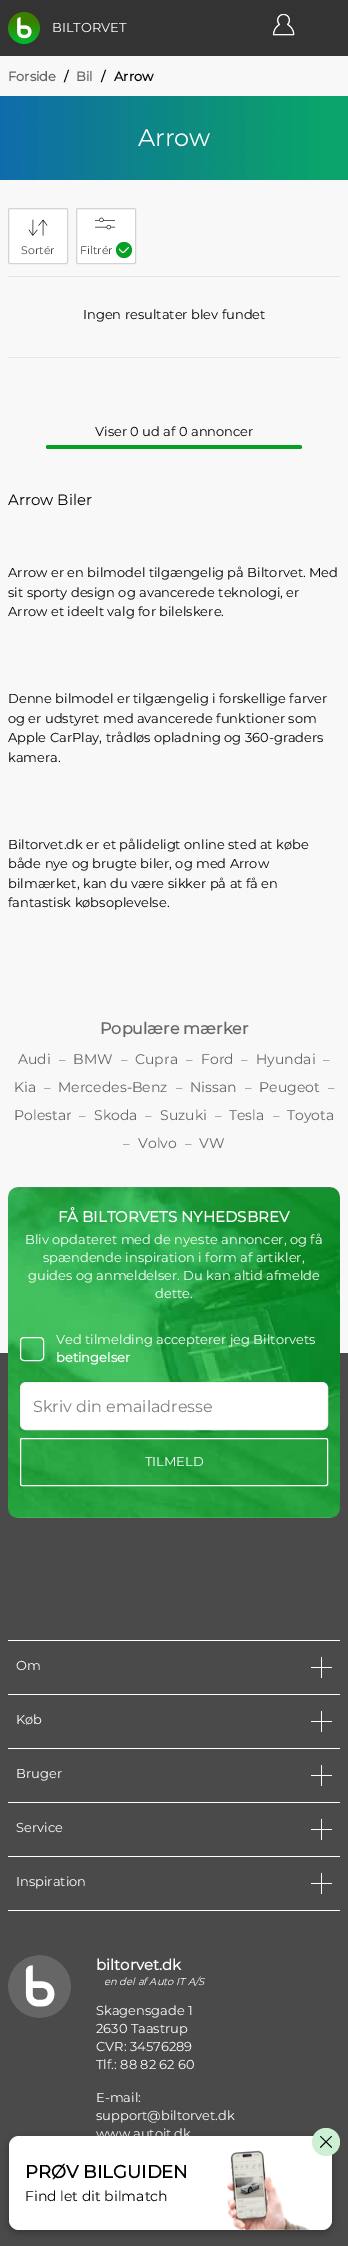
%!PS
<< /PageSize [348 2246] /PageUsesTransparency true >> setpagedevice
/m/moveto load def
/l/rlineto load def
/z/closepath load def
/f/fill load def
/s/stroke load def
/q/gsave load def
/Q_/grestore load def
/C { dup -16 bitshift 255 div exch dup -8 bitshift 255 and 255 div exch 255 and 255 div setrgbcolor } def
/F { [ exch dup neg 0 0 3 -1 roll 0 0 ] selectfont } def
/T { moveto show } def
/R { rectfill } def
/A { dup .setfillconstantalpha .setstrokeconstantalpha } def
/O { newpath 0 360 arc closepath } def
/Q { 5 dict begin { /r /h /w /y /x } { exch def } forall
  x r add y moveto x w add y 2 copy h add r arct x w add y h add x 1 index r arct
  x y h add x y r arct x y 2 copy exch w add exch r arct closepath end } def
/S { 12 dict begin { /a /b /q /h /w /y /x } { exch def } forall gsave /was 0 def
  9 -2 -9 { dup b mul 4 div /e exch def 1 sub .425 mul 2.718 exch exp 1 add a .99 .min exch div /now exch def
    1 1 now sub 1 was sub div sub A /was now def
    w h .min e 2 mul add 0 gt { x e sub y e sub w e 2 mul add h e 2 mul add
      q e add b .6 mul add w h .min 2 div e add .min 0 .max Q fill } if } for grestore end } def
/I { 5 dict begin { /h /w /y /x /name } { exch def } forall
  gsave x y translate w h scale
  w h 8 [w 0 0 h 0 0] name (r) file false 3 colorimage grestore end } def
0 .pushpdf14devicefilter
0 2246 translate 1 -1 scale
4 setmiterlimit
16#F8F8F8 C
0 0 348 2246 R
16#333333 C
0 0 348 56 R
(1.rgb) 8 12 32 32 I
/Montserrat-Regular 13 F
16#FFFFFF C
(BILTORVET) 52 32 T
(2.rgb) 272 14 23 22 I
/Montserrat-Bold 13 F
16#666666 C
(Forside) 8 81 T
16#000000 C
(/) 64 81 T
16#666666 C
(Bil) 76 81 T
16#000000 C
(/) 101 81 T
(Arrow) 114 81 T
(3.rgb) 0 96 348 84 I
/Montserrat-Regular 24 F
16#FFFFFF C
(Arrow) 138 146 T
16#E5E5E5 C
8 276 332 1 R
16#FFFFFF C
8.5 208.5 59 55 1.5 Q q f Q_
16#D3D3D3 C
s
(4.rgb) 28 219 20 17 I
/Montserrat-Regular 11 F
16#4A4A4A C
(Sortér) 21 254 T
16#FFFFFF C
76.5 208.5 59 55 1.5 Q q f Q_
16#D3D3D3 C
s
(5.rgb) 95 217 21 13 I
16#4A4A4A C
(Filtrér) 80 254 T
16#06A022 C
124 250 8 O f
q
119 247 10 6 rectclip
16#FFFFFF C
1 setlinecap
1 setlinejoin
129 247 m -6 6 l -4 -4 l s
Q_
/Montserrat-Regular 13 F
16#000000 C
(Ingen resultater blev fundet) 83 319 T
16#E5E5E5 C
8 357 332 1 R
16#000000 C
(Viser 0 ud af 0 annoncer) 95 436 T
16#06A022 C
46 445 256 4 2 Q f
/Montserrat-Regular 15 F
16#000000 C
(Arrow Biler) 8 505 T
/Montserrat-Regular 13 F
(Arrow er en bilmodel tilgængelig på Biltorvet. Med) 8 577 T
(sit sporty design og avancerede teknologi, er) 8 597 T
(Arrow et ideelt valg for bilelskere.) 8 616 T
(Denne bilmodel er tilgængelig i forskellige farver) 8 703 T
(og er udstyret med avancerede funktioner som) 8 723 T
(Apple CarPlay, trådløs opladning og 360-graders) 8 742 T
(kamera.) 8 762 T
(Biltorvet.dk er et pålideligt online sted at købe) 8 849 T
(både nye og brugte biler, og med Arrow) 8 868 T
(bilmærket, kan du være sikker på at få en) 8 888 T
(fantastisk købsoplevelse.) 8 907 T
/Montserrat-Bold 16 F
16#666666 C
(Populære mærker) 100 1034 T
/Montserrat-Regular 14 F
(Audi) 18 1064 T
/Montserrat-Regular 13 F
(–) 59 1064 T
/Montserrat-Regular 14 F
(BMW) 73 1064 T
/Montserrat-Regular 13 F
(–) 121 1064 T
/Montserrat-Regular 14 F
(Cupra) 135 1064 T
/Montserrat-Regular 13 F
(–) 186 1064 T
/Montserrat-Regular 14 F
(Ford) 201 1064 T
/Montserrat-Regular 13 F
(–) 241 1064 T
/Montserrat-Regular 14 F
(Hyundai) 256 1064 T
/Montserrat-Regular 13 F
(–) 323 1064 T
/Montserrat-Regular 14 F
(Kia) 14 1092 T
/Montserrat-Regular 13 F
(–) 44 1092 T
/Montserrat-Regular 14 F
(Mercedes-Benz) 58 1092 T
/Montserrat-Regular 13 F
(–) 176 1092 T
/Montserrat-Regular 14 F
(Nissan) 190 1092 T
/Montserrat-Regular 13 F
(–) 245 1092 T
/Montserrat-Regular 14 F
(Peugeot) 259 1092 T
/Montserrat-Regular 13 F
(–) 328 1092 T
/Montserrat-Regular 14 F
(Polestar) 14 1120 T
/Montserrat-Regular 13 F
(–) 79 1120 T
/Montserrat-Regular 14 F
(Skoda) 94 1120 T
/Montserrat-Regular 13 F
(–) 145 1120 T
/Montserrat-Regular 14 F
(Suzuki) 160 1120 T
/Montserrat-Regular 13 F
(–) 215 1120 T
/Montserrat-Regular 14 F
(Tesla) 229 1120 T
/Montserrat-Regular 13 F
(–) 273 1120 T
/Montserrat-Regular 14 F
(Toyota) 287 1120 T
/Montserrat-Regular 13 F
(–) 123 1148 T
/Montserrat-Regular 14 F
(Volvo) 138 1148 T
/Montserrat-Regular 13 F
(–) 185 1148 T
/Montserrat-Regular 14 F
(VW) 199 1148 T
16#4A4A4A C
0 1353 348 893 R
(6.rgb) 8 1187 332 331 I
/Montserrat-Bold 15 F
16#FFFFFF C
(FÅ BILTORVETS NYHEDSBREV) 58 1222 T
/Montserrat-Regular 13 F
(Bliv opdateret med de nyeste annoncer, og få) 25 1244 T
(spændende inspiration i form af artikler,) 43 1262 T
(guides og anmeldelser. Du kan altid afmelde) 28 1280 T
(dette.) 155 1298 T
20.5 1337.5 23 23 3.5 Q s
(Ved tilmelding accepterer jeg Biltorvets) 56 1344 T
/Montserrat-Bold 13 F
(betingelser) 56 1362 T
0.05 A
16#000000 C
19.5 1381.5 309 49 rectstroke
1 A
16#FFFFFF C
20.5 1382.5 307 47 5.5 Q q f Q_
16#F5F5F5 C
s
/Montserrat-Regular 16 F
16#808080 C
(Skriv din emailadresse) 33 1412 T
16#FFFFFF C
20.5 1438.5 307 47 1.5 Q s
/Montserrat-Regular 13 F
(TILMELD) 145 1466 T
8 1640 332 1 R
(Om) 16 1670 T
321 1657 1 21 R
311 1667 21 1 R
8 1694 332 1 R
(Køb) 16 1724 T
321 1711 1 21 R
311 1721 21 1 R
8 1748 332 1 R
(Bruger) 16 1778 T
321 1765 1 21 R
311 1775 21 1 R
8 1802 332 1 R
(Service) 16 1832 T
321 1819 1 21 R
311 1829 21 1 R
8 1856 332 1 R
8 1910 332 1 R
(Inspiration) 16 1886 T
321 1873 1 21 R
311 1883 21 1 R
(7.rgb) 8 1955 63 63 I
/Montserrat-Bold 15 F
(biltorvet.dk) 96 1970 T
/Montserrat-Italic 10 F
(en del af Auto IT A/S) 104 1985 T
/Montserrat-Regular 13 F
(Skagensgade 1) 96 2015 T
(2630 Taastrup) 96 2033 T
(CVR: 34576289) 96 2051 T
(Tlf.: 88 82 62 60) 96 2069 T
(E-mail:) 96 2102 T
(support@biltorvet.dk) 96 2120 T
(www.autoit.dk) 96 2138 T
16#000000 C
9 2139 323 94 10 4 .26 S
16#FFFFFF C
9 2136 323 94 10 Q f
16#CCF0D4 C
326 2142 14 O f
16#000000 C
320.5 2136 m 11.5 11 l -.5 1 l -11.5 -11.5 l z f
320 2147 m 11.5 -11 l .5 .5 l -11.5 11.5 l z f
/Montserrat-Bold 18 F
(PRØV BILGUIDEN) 25 2178 T
/Montserrat-Regular 14 F
(Find let dit bilmatch) 25 2201 T
(8.rgb) 227 2150 83 80 I
.poppdf14devicefilter showpage
